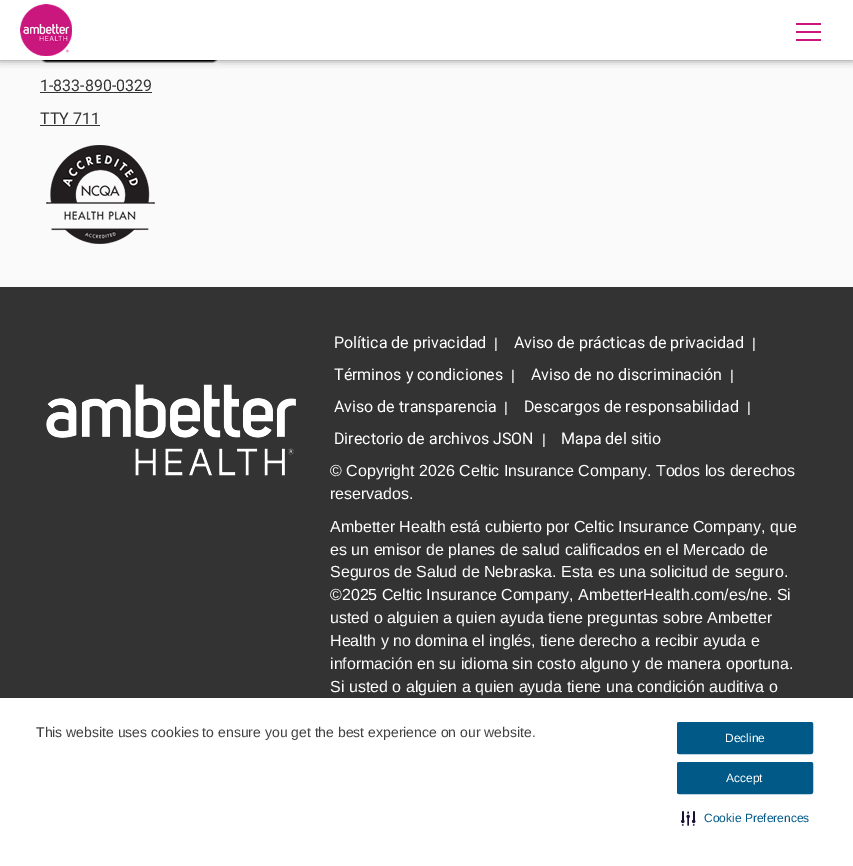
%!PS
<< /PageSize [853 866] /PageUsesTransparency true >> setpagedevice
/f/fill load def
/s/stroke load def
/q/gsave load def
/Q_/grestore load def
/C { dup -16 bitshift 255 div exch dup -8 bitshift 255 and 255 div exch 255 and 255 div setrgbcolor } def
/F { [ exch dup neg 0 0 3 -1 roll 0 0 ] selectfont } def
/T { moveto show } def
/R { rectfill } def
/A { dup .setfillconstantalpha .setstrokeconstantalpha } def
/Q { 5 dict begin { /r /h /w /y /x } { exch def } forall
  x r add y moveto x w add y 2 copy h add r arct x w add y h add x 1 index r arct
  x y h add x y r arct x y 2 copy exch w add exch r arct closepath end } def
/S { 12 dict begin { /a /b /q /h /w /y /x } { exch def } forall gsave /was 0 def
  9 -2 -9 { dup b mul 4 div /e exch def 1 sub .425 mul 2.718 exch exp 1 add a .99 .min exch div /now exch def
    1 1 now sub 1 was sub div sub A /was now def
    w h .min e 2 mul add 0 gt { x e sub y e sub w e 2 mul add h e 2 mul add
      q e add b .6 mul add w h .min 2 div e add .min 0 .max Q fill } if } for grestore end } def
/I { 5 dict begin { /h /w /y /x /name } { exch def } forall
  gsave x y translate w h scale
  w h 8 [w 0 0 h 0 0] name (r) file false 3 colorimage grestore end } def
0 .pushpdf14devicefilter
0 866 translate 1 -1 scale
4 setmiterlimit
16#FAFAFA C
0 0 853 866 R
(3.rgb) 40 60 180 5 I
16#000000 C
0 0 853 60 0 4 .5 S
16#FFFFFF C
0 0 853 60 R
(1.rgb) 20 4 52 52 I
(2.rgb) 796 23 25 18 I
/Roboto-Regular 16 F
16#333333 C
(1-833-890-0329) 40 91 T
40 92 112 1 R
(TTY 711) 40 124 T
40 125 60 1 R
(4.rgb) 46 145 109 99 I
0 287 853 411 R
(5.rgb) 46 384 250 92 I
16#FFFFFF C
(Política de privacidad) 334 348 T
/LiberationSans-Regular 14 F
(|) 494 348 T
/Roboto-Regular 16 F
(Aviso de prácticas de privacidad) 514 348 T
/LiberationSans-Regular 14 F
(|) 752 348 T
/Roboto-Regular 16 F
(Términos y condiciones) 334 380 T
/LiberationSans-Regular 14 F
(|) 511 380 T
/Roboto-Regular 16 F
(Aviso de no discriminación) 531 380 T
/LiberationSans-Regular 14 F
(|) 730 380 T
/Roboto-Regular 16 F
(Aviso de transparencia) 334 412 T
/LiberationSans-Regular 14 F
(|) 504 412 T
/Roboto-Regular 16 F
(Descargos de responsabilidad) 524 412 T
/LiberationSans-Regular 14 F
(|) 747 412 T
/Roboto-Regular 16 F
(Directorio de archivos JSON) 334 444 T
/LiberationSans-Regular 14 F
(|) 542 444 T
/Roboto-Regular 16 F
(Mapa del sitio) 561 444 T
/LiberationSans-Regular 16 F
(© Copyright 2026 Celtic Insurance Company. Todos los derechos) 330 476 T
(reservados.) 330 499 T
(Ambetter Health está cubierto por Celtic Insurance Company, que) 330 532 T
(es un emisor de planes de salud calificados en el Mercado de) 330 555 T
(Seguros de Salud de Nebraska. Esta es una solicitud de seguro.) 330 577 T
(©2025 Celtic Insurance Company, AmbetterHealth.com/es/ne. Si) 330 600 T
(usted o alguien a quien ayuda tiene preguntas sobre Ambetter) 330 623 T
(Health y no domina el inglés, tiene derecho a recibir ayuda e) 330 646 T
(información en su idioma sin costo alguno y de manera oportuna.) 330 669 T
(Si usted o alguien a quien ayuda tiene una condición auditiva o) 330 692 T
0 698 853 168 R
/LiberationSans-Regular 14 F
16#404040 C
(This website uses cookies to ensure you get the best experience on our website.) 36 737 T
16#005986 C
677.5 722.5 135 31 1.5 Q q f Q_
s
/LiberationSans-Regular 12 F
16#FFFFFF C
(Decline) 725 742 T
16#005986 C
677.5 762.5 135 31 1.5 Q q f Q_
s
16#FFFFFF C
(Accept) 726 782 T
(6.rgb) 681 811 15 15 I
16#005986 C
(Cookie Preferences) 704 822 T
.poppdf14devicefilter showpage
